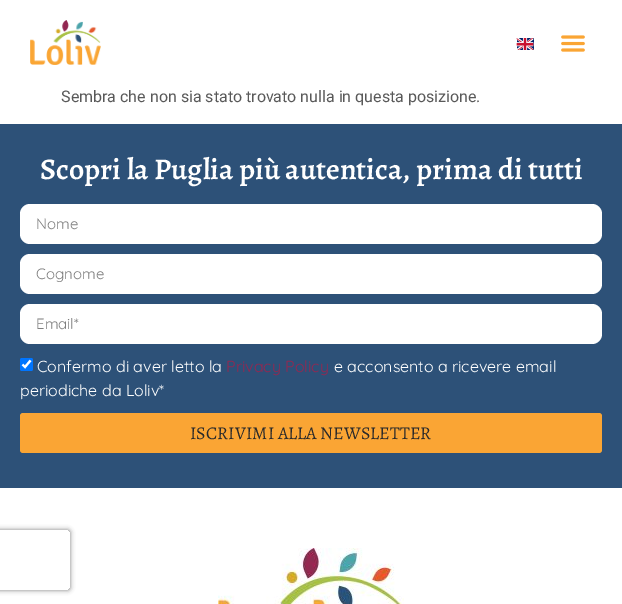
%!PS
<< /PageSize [622 604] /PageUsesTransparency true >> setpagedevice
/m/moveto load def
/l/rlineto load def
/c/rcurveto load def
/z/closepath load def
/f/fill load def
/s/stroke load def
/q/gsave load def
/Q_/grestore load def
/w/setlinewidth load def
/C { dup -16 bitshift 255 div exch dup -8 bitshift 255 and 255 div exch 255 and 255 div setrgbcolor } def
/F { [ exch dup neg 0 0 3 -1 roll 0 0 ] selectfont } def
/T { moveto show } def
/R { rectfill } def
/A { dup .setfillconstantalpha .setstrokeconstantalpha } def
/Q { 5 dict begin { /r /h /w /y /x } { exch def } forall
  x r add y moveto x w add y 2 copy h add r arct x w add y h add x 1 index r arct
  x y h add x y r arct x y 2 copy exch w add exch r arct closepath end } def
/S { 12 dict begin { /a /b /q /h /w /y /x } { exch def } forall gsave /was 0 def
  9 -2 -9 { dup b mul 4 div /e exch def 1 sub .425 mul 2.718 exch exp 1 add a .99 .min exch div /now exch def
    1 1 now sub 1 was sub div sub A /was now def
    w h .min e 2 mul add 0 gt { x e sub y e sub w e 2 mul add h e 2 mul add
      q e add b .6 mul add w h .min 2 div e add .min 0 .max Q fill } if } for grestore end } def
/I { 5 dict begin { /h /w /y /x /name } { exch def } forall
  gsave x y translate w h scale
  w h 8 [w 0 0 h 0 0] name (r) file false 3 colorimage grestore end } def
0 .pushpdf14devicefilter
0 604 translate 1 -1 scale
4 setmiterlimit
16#FFFFFF C
0 0 622 604 R
(1.rgb) 30 20 71 45 I
(2.rgb) 516 38 18 12 I
(3.rgb) 561 35 24 17 I
/Roboto-Regular 16 F
16#595959 C
(Sembra che non sia stato trovato nulla in questa posizione.) 61 102 T
16#2D5178 C
0 124 622 364 R
/Alegreya-SemiBold 30 F
16#FFFFFF C
(Scopri la Puglia più autentica, prima di tutti) 40 179 T
20 204 582 40 10 Q f
/Quicksand-Regular 15 F
16#7F7F7F C
(Nome) 36 229 T
16#FFFFFF C
20 254 582 40 10 Q f
16#7F7F7F C
(Cognome) 36 279 T
16#FFFFFF C
20 304 582 40 10 Q f
16#7F7F7F C
(Email*) 36 329 T
16#0075FF C
20 358 13 13 2 Q f
16#FFFFFF C
2.1 w
22.5 364.5 m 2.5 2.5 l 5.5 -6.5 l s
/Quicksand-Regular 16 F
(Confermo di aver letto la) 37 372 T
16#912851 C
(Privacy Policy) 226 372 T
16#FFFFFF C
(e acconsento a ricevere email) 334 372 T
(periodiche da Loliv*) 20 396 T
16#FAA534 C
20 413 582 40 3 Q f
/Alegreya-Regular 18 F
16#2A2A2A C
(ISCRIVIMI ALLA NEWSLETTER) 190 439 T
q
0 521 m 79 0 l 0 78 l -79 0 l z -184 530 m 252 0 l 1 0 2 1 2 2 c 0 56 l 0 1 -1 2 -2 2 c -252 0 l -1 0 -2 -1 -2 -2 c 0 -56 l 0 -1 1 -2 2 -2 c z eoclip newpath
16#808080 C
-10 530 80 60 2 2.5 1 S
Q_
(4.rgb) 218 548 186 56 I
.poppdf14devicefilter showpage
